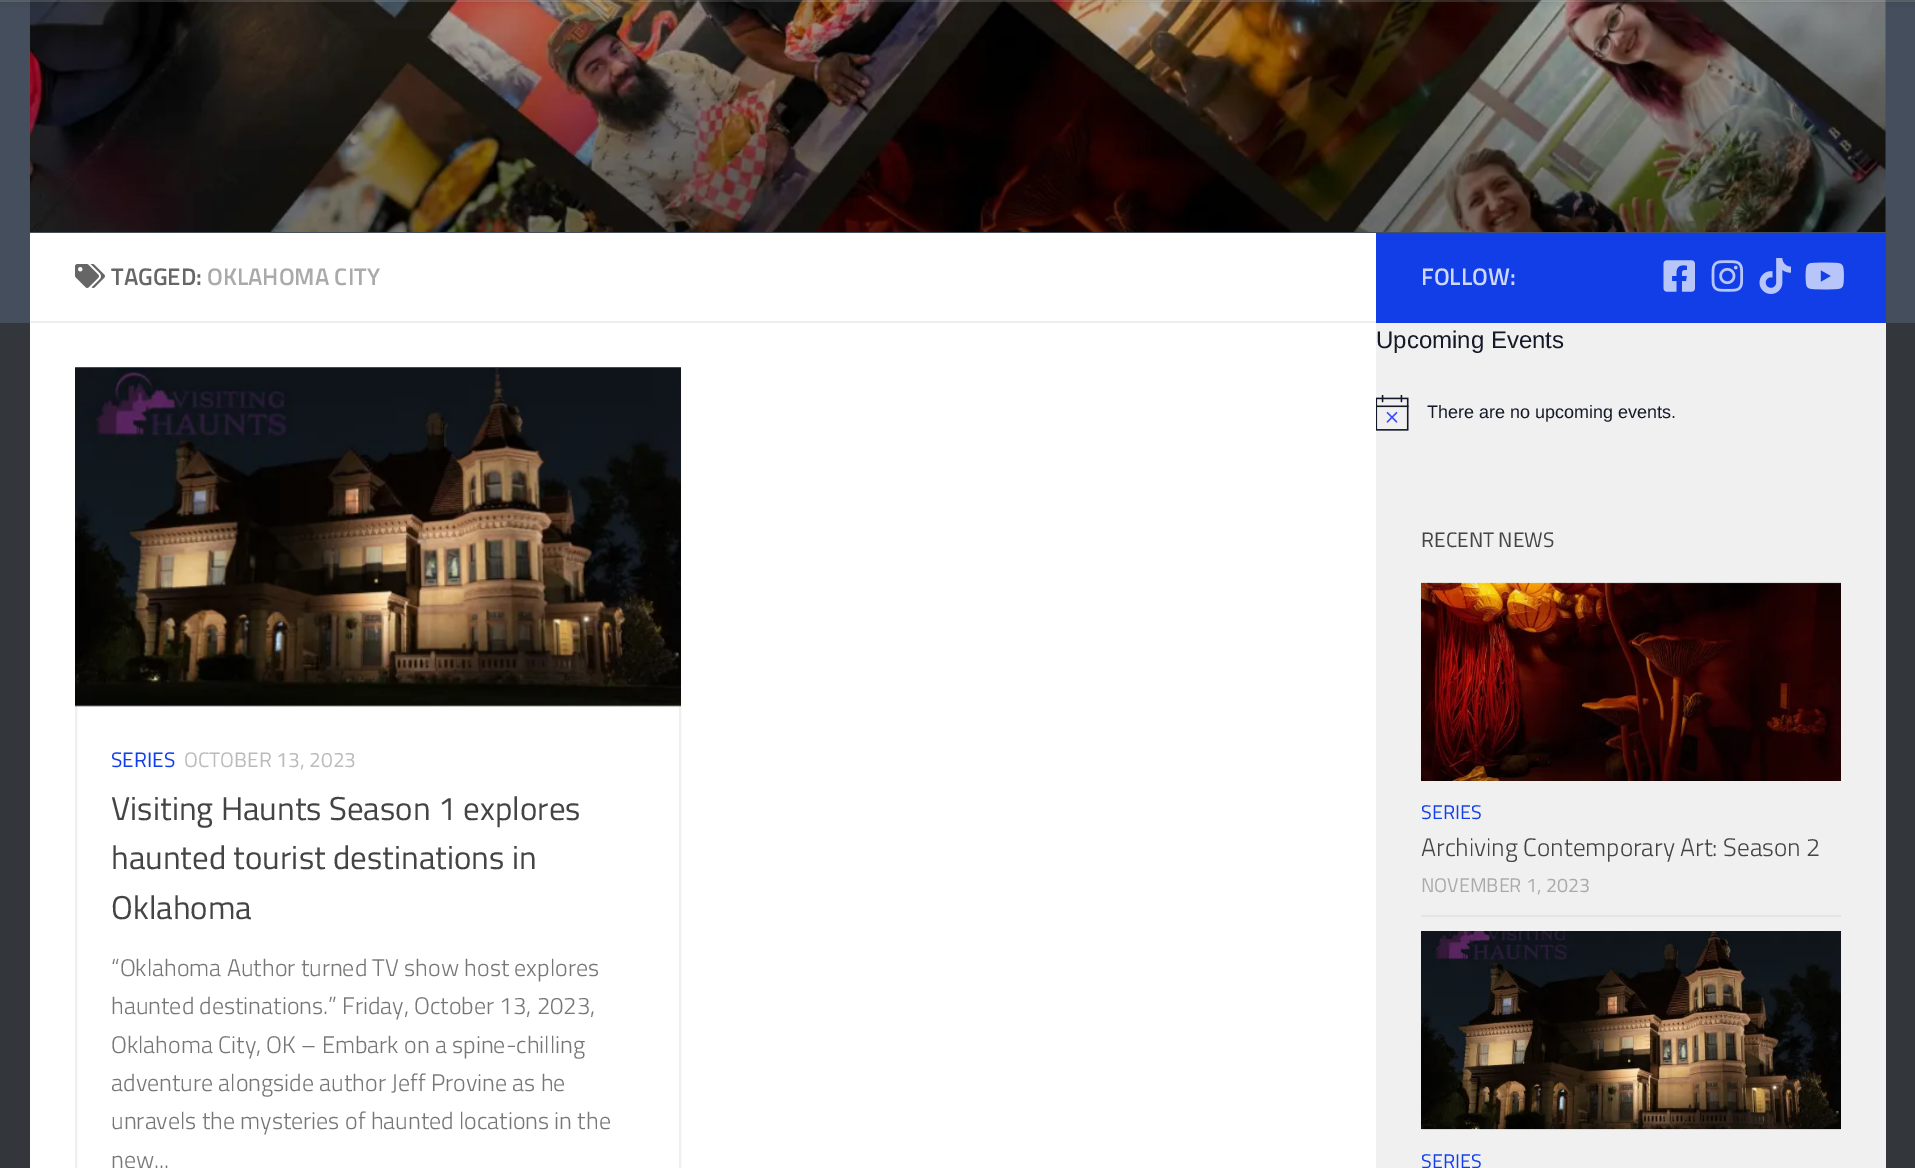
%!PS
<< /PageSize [1915 1168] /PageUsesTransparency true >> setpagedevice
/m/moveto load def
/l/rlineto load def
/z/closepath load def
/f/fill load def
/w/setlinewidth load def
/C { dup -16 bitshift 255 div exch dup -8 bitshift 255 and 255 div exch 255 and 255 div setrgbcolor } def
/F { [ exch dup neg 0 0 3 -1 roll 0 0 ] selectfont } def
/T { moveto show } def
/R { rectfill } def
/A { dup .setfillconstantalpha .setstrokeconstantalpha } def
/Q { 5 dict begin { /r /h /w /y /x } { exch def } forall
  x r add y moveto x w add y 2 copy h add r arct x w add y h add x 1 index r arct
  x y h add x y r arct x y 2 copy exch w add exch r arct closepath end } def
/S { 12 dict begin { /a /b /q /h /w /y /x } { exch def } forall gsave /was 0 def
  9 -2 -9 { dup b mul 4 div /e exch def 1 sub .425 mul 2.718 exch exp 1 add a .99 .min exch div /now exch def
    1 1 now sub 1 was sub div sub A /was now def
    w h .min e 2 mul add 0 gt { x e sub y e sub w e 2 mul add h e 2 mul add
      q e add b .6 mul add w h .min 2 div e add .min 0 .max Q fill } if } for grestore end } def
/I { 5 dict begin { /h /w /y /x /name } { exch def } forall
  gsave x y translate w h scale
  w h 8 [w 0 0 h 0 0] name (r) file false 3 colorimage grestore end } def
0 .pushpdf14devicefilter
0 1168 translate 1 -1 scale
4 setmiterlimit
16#33363B C
0 0 1915 1168 R
16#454E5C C
0 0 1915 323 R
(1.rgb) 30 0 1856 232 I
0.15 A
16#FFFFFF C
0 0 m 0 2 l 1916 0 l 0 -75 l 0 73 l z f
1 A
16#000000 C
0 -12 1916 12 0 4 .2 S
16#FFFFFF C
30 233 1346 935 R
16#EEEEEE C
30 321 1346 2 R
(2.rgb) 75 264 30 24 I
/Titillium-SemiBold 24 F
16#666666 C
(TAGGED:) 111 285 T
16#AAAAAA C
(OKLAHOMA CITY) 207 285 T
16#EFEFEF C
2 w
76 369 604 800 rectstroke
(3.rgb) 75 367 606 340 I
/Titillium-Regular 21 F
16#113EE7 C
(SERIES) 111 767 T
16#BBBBBB C
(OCTOBER 13, 2023) 184 767 T
/Titillium-Regular 33 F
16#444444 C
(Visiting Haunts Season 1 explores) 111 820 T
(haunted tourist destinations in) 111 869 T
(Oklahoma) 111 919 T
/Titillium-Light 24 F
16#767676 C
(“Oklahoma Author turned TV show host explores) 111 976 T
(haunted destinations.” Friday, October 13, 2023,) 111 1014 T
(Oklahoma City, OK – Embark on a spine-chilling) 111 1053 T
(adventure alongside author Jeff Provine as he) 111 1091 T
(unravels the mysteries of haunted locations in the) 111 1129 T
(new...) 111 1168 T
16#113EE7 C
1376 233 510 90 R
/Titillium-SemiBold 24 F
16#CFD8FA C
(FOLLOW:) 1421 285 T
(4.rgb) 1663 260 32 32 I
(5.rgb) 1711 260 33 32 I
(6.rgb) 1759 258 32 36 I
(7.rgb) 1805 262 39 28 I
16#F0F0F0 C
1376 323 510 845 R
/LiberationSans-Regular 24 F
16#141827 C
(Upcoming Events) 1376 348 T
(8.rgb) 1376 395 33 36 I
/LiberationSans-Regular 18 F
(There are no upcoming events.) 1427 418 T
/Titillium-Regular 21 F
16#444444 C
(RECENT NEWS) 1421 547 T
16#E4E4E4 C
1421 915 420 2 R
(9.rgb) 1421 582 420 199 I
/Titillium-Regular 19.75 F
16#113EE7 C
(SERIES) 1421 819 T
/Titillium-Light 25.25 F
16#444444 C
(Archiving Contemporary Art: Season 2) 1421 856 T
/Titillium-Regular 19.75 F
16#AAAAAA C
(NOVEMBER 1, 2023) 1421 892 T
(10.rgb) 1421 931 420 199 I
16#113EE7 C
(SERIES) 1421 1168 T
.poppdf14devicefilter showpage
